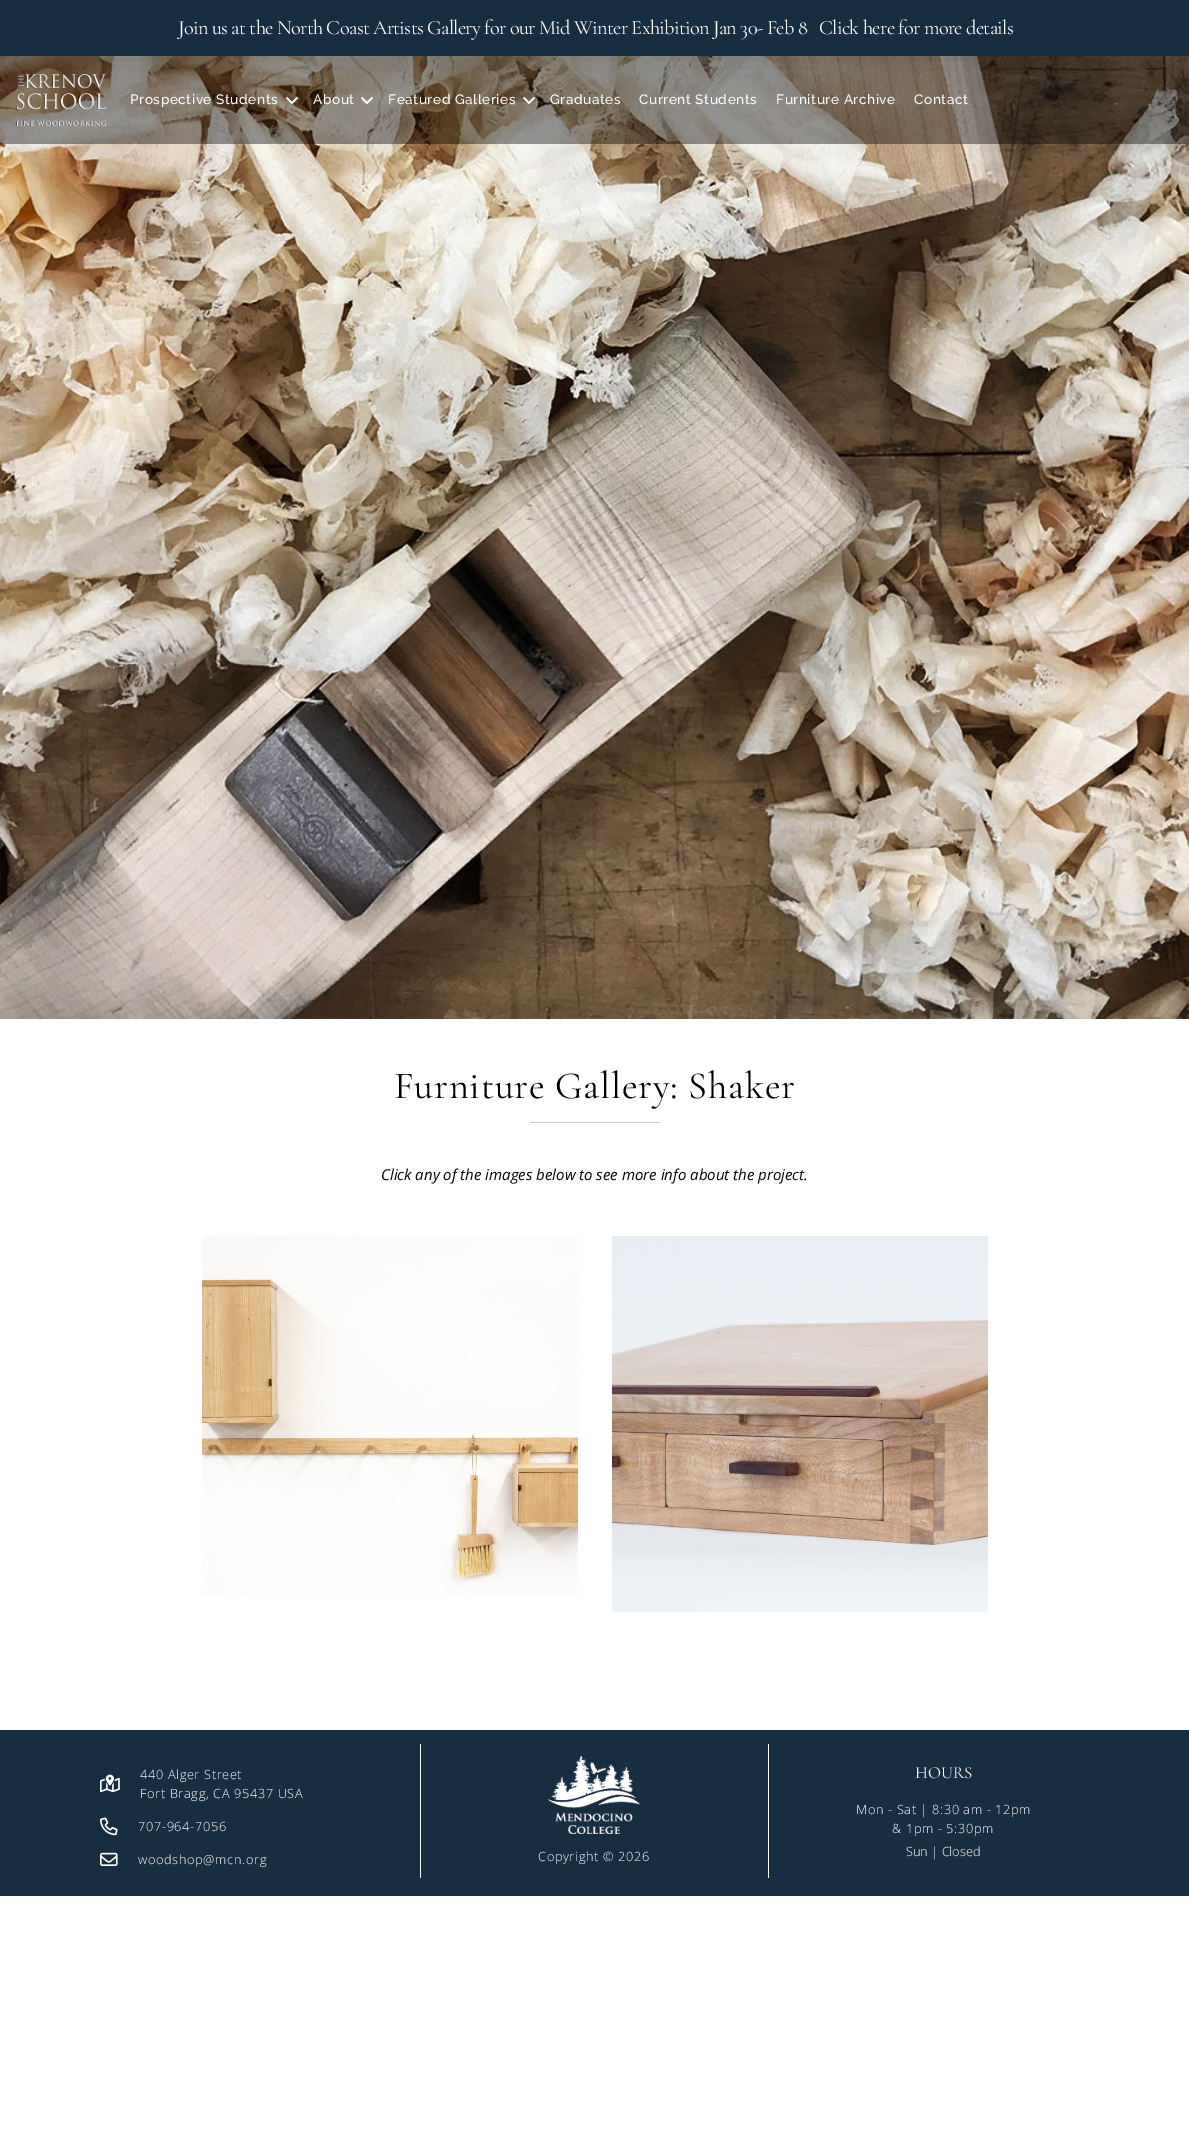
%!PS
<< /PageSize [1189 2140] /PageUsesTransparency true >> setpagedevice
/m/moveto load def
/C { dup -16 bitshift 255 div exch dup -8 bitshift 255 and 255 div exch 255 and 255 div setrgbcolor } def
/F { [ exch dup neg 0 0 3 -1 roll 0 0 ] selectfont } def
/T { moveto show } def
/R { rectfill } def
/A { dup .setfillconstantalpha .setstrokeconstantalpha } def
/Q { 5 dict begin { /r /h /w /y /x } { exch def } forall
  x r add y moveto x w add y 2 copy h add r arct x w add y h add x 1 index r arct
  x y h add x y r arct x y 2 copy exch w add exch r arct closepath end } def
/S { 12 dict begin { /a /b /q /h /w /y /x } { exch def } forall gsave /was 0 def
  9 -2 -9 { dup b mul 4 div /e exch def 1 sub .425 mul 2.718 exch exp 1 add a .99 .min exch div /now exch def
    1 1 now sub 1 was sub div sub A /was now def
    w h .min e 2 mul add 0 gt { x e sub y e sub w e 2 mul add h e 2 mul add
      q e add b .6 mul add w h .min 2 div e add .min 0 .max Q fill } if } for grestore end } def
/I { 5 dict begin { /h /w /y /x /name } { exch def } forall
  gsave x y translate w h scale
  w h 8 [w 0 0 h 0 0] name (r) file false 3 colorimage grestore end } def
0 .pushpdf14devicefilter
0 2140 translate 1 -1 scale
4 setmiterlimit
16#FFFFFF C
0 0 1189 2140 R
(5.rgb) 0 56 1189 963 I
16#000000 C
0 2 1189 56 0 16 .15 S
16#172D42 C
0 0 1189 56 R
/CormorantGaramond-Regular 20.4 F
16#FFFFFF C
178 34 m -.71 0 (Join us at the North Coast Artists Gallery for our Mid Winter Exhibition Jan 30- Feb 8   Click here for more details) ashow
0.4 A
16#000000 C
0 56 1189 88 R
1 A
(1.rgb) 16 74 90 52 I
/Raleway-Medium 13.6 F
16#FFFFFF C
130 104 m .6 0 (Prospective Students) ashow
(2.rgb) 286 97 12 7 I
313 104 m .6 0 (About) ashow
(3.rgb) 361 97 12 7 I
388 104 m .6 0 (Featured Galleries) ashow
(4.rgb) 523 97 12 7 I
550 104 m .6 0 (Graduates) ashow
639 104 m .6 0 (Current Students) ashow
776 104 m .6 0 (Furniture Archive) ashow
914 104 m .6 0 (Contact) ashow
/CormorantGaramond-Regular 38.5 F
16#000000 C
394 1098 m .75 0 (Furniture Gallery: Shaker) ashow
16#CCCCCC C
530 1122 130 1 R
/OpenSans-Italic 15 F
16#000000 C
(Click any of the images below to see more info about the project.) 381 1180 T
(6.rgb) 202 1236 376 360 I
(7.rgb) 612 1236 376 376 I
16#172D42 C
0 1730 1189 166 R
(8.rgb) 100 1774 20 19 I
/OpenSans-Light 12.75 F
16#FFFFFF C
140 1779 m .65 0 (440 Alger Street) ashow
140 1798 m .65 0 (Fort Bragg, CA 95437 USA) ashow
(9.rgb) 100 1817 18 19 I
138 1831 m .65 0 (707-964-7056) ashow
(10.rgb) 100 1852 18 14 I
138 1864 m .65 0 (woodshop@mcn.org) ashow
768 1744 1 134 R
420 1744 1 134 R
(11.rgb) 548 1756 92 78 I
538 1861 m .65 0 (Copyright © 2026) ashow
/CormorantGaramond-Regular 17 F
(HOURS) 915 1778 T
/OpenSans-Light 12.75 F
856 1814 m .65 0 (Mon - Sat | 8:30 am - 12pm) ashow
892 1833 m .65 0 (& 1pm - 5:30pm) ashow
(Sun | Closed) 906 1856 T
.poppdf14devicefilter showpage
